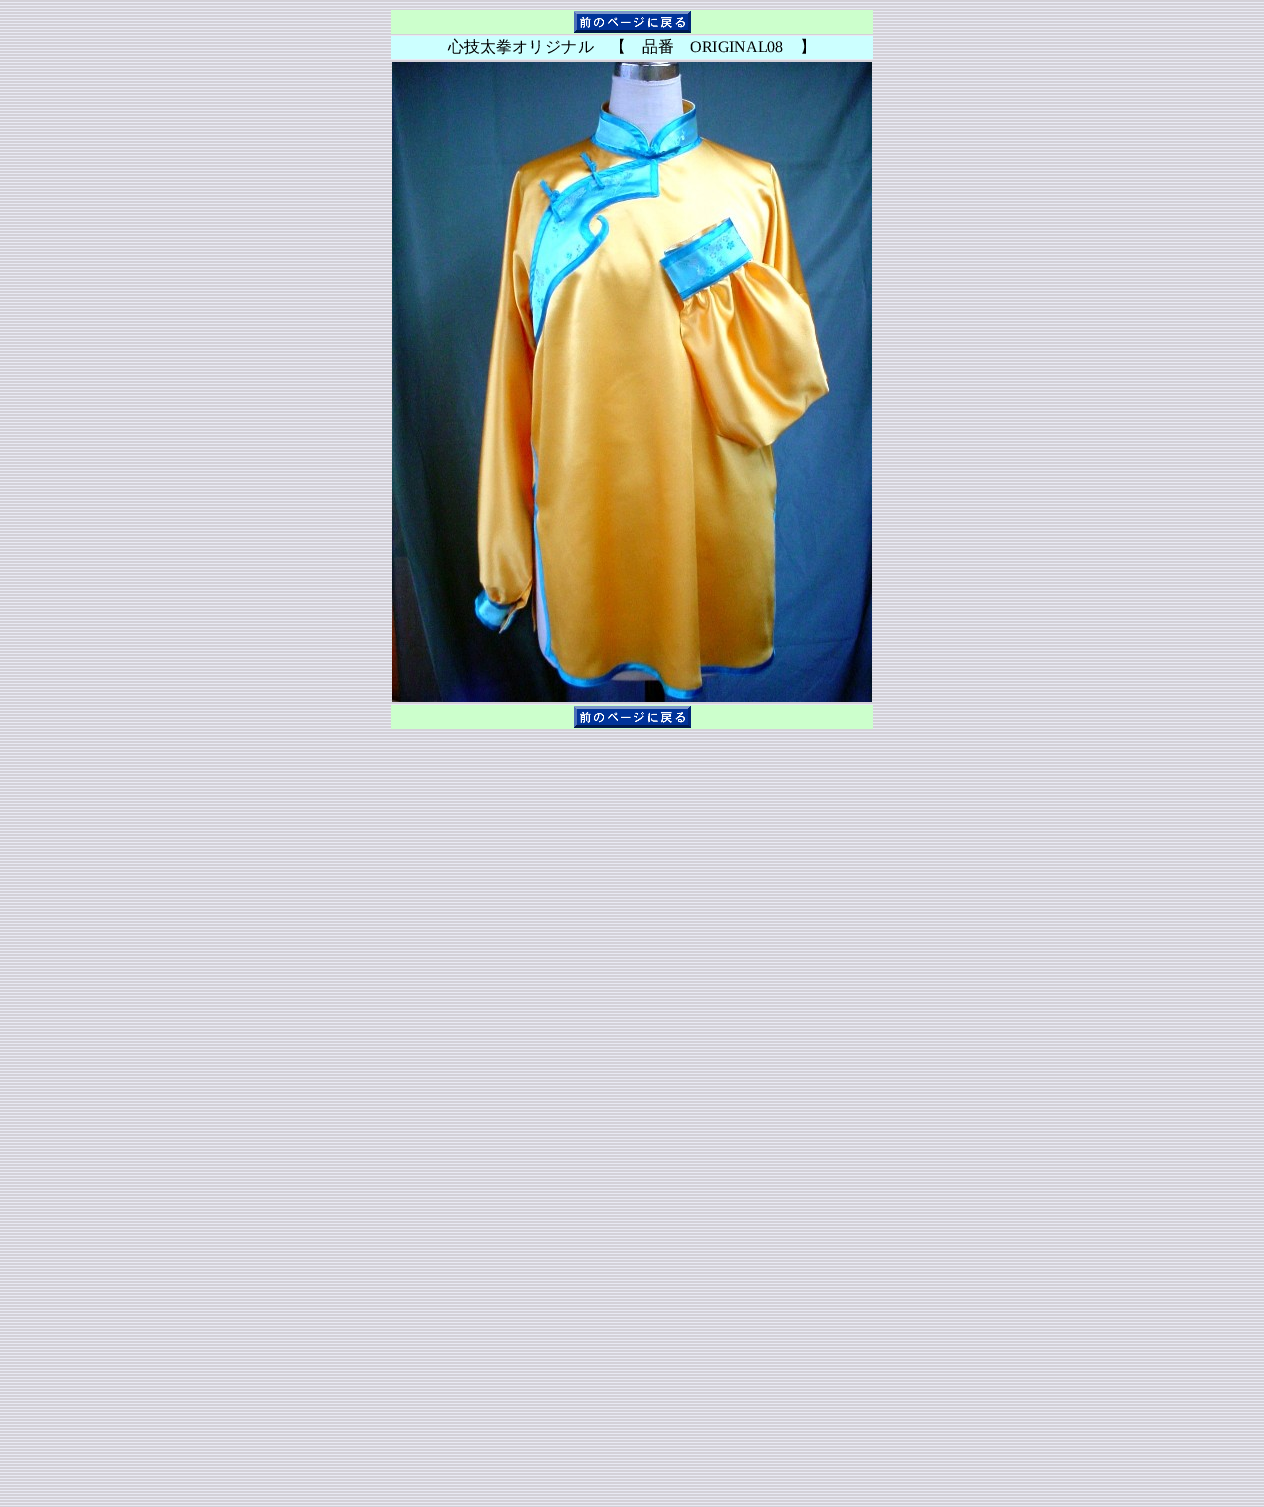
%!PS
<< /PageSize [1264 1507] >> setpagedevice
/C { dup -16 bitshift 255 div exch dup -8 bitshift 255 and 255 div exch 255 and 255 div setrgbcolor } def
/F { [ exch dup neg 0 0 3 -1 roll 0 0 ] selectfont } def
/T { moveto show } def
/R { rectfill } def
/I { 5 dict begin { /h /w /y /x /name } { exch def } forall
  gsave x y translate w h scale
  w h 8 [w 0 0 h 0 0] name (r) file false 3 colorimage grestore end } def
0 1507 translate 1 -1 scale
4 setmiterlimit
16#FFFFFF C
0 0 1264 1507 R
(1.rgb) 0 0 1264 1507 I
16#CCFFCC C
391 10 482 24 R
(2.rgb) 574 11 117 22 I
16#CCFFFF C
391 36 482 23 R
/WenQuanYiZenHei-Medium 16 F
16#000000 C
(心技太拳オリジナル　【　品番) 448 52 T
/LiberationSerif-Regular 16 F
(ORIGINAL08) 690 52 T
/WenQuanYiZenHei-Medium 16 F
(】) 800 52 T
(3.rgb) 392 62 480 640 I
16#CCFFCC C
391 705 482 24 R
(2.rgb) 574 706 117 22 I
showpage
